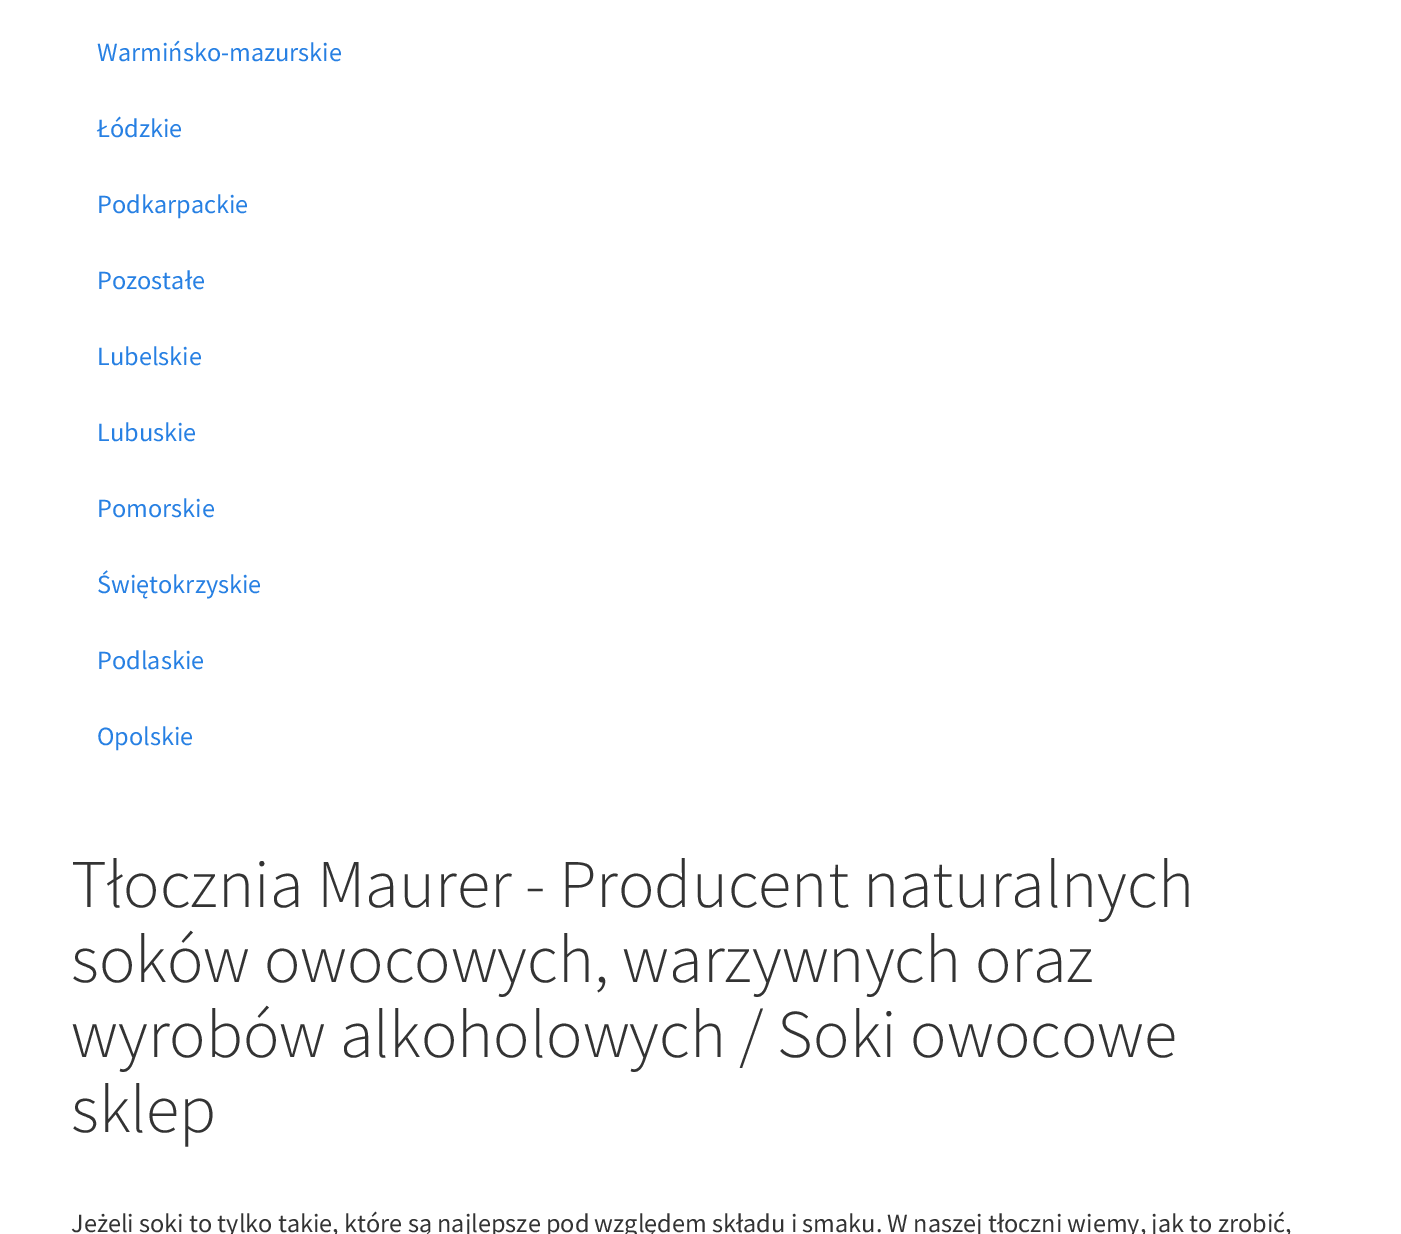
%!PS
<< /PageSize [1401 1234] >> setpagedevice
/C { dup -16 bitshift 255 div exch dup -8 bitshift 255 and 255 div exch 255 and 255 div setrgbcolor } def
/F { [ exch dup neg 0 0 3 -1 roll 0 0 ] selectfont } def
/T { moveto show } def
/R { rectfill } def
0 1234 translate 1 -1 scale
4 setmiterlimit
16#FFFFFF C
0 0 1401 1234 R
/SourceSansPro-Regular 26.25 F
16#2780E3 C
(Warmińsko-mazurskie) 97 61 T
(Łódzkie) 97 137 T
(Podkarpackie) 97 213 T
(Pozostałe) 97 289 T
(Lubelskie) 97 365 T
(Lubuskie) 97 441 T
(Pomorskie) 97 517 T
(Świętokrzyskie) 97 593 T
(Podlaskie) 97 669 T
(Opolskie) 97 745 T
/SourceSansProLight-Light 68.25 F
16#333333 C
(Tłocznia Maurer - Producent naturalnych) 71 907 T
(soków owocowych, warzywnych oraz) 71 982 T
(wyrobów alkoholowych / Soki owocowe) 71 1057 T
(sklep) 71 1132 T
/SourceSansPro-Regular 26.25 F
(Jeżeli soki to tylko takie, które są najlepsze pod względem składu i smaku. W naszej tłoczni wiemy, jak to zrobić,) 71 1232 T
showpage
